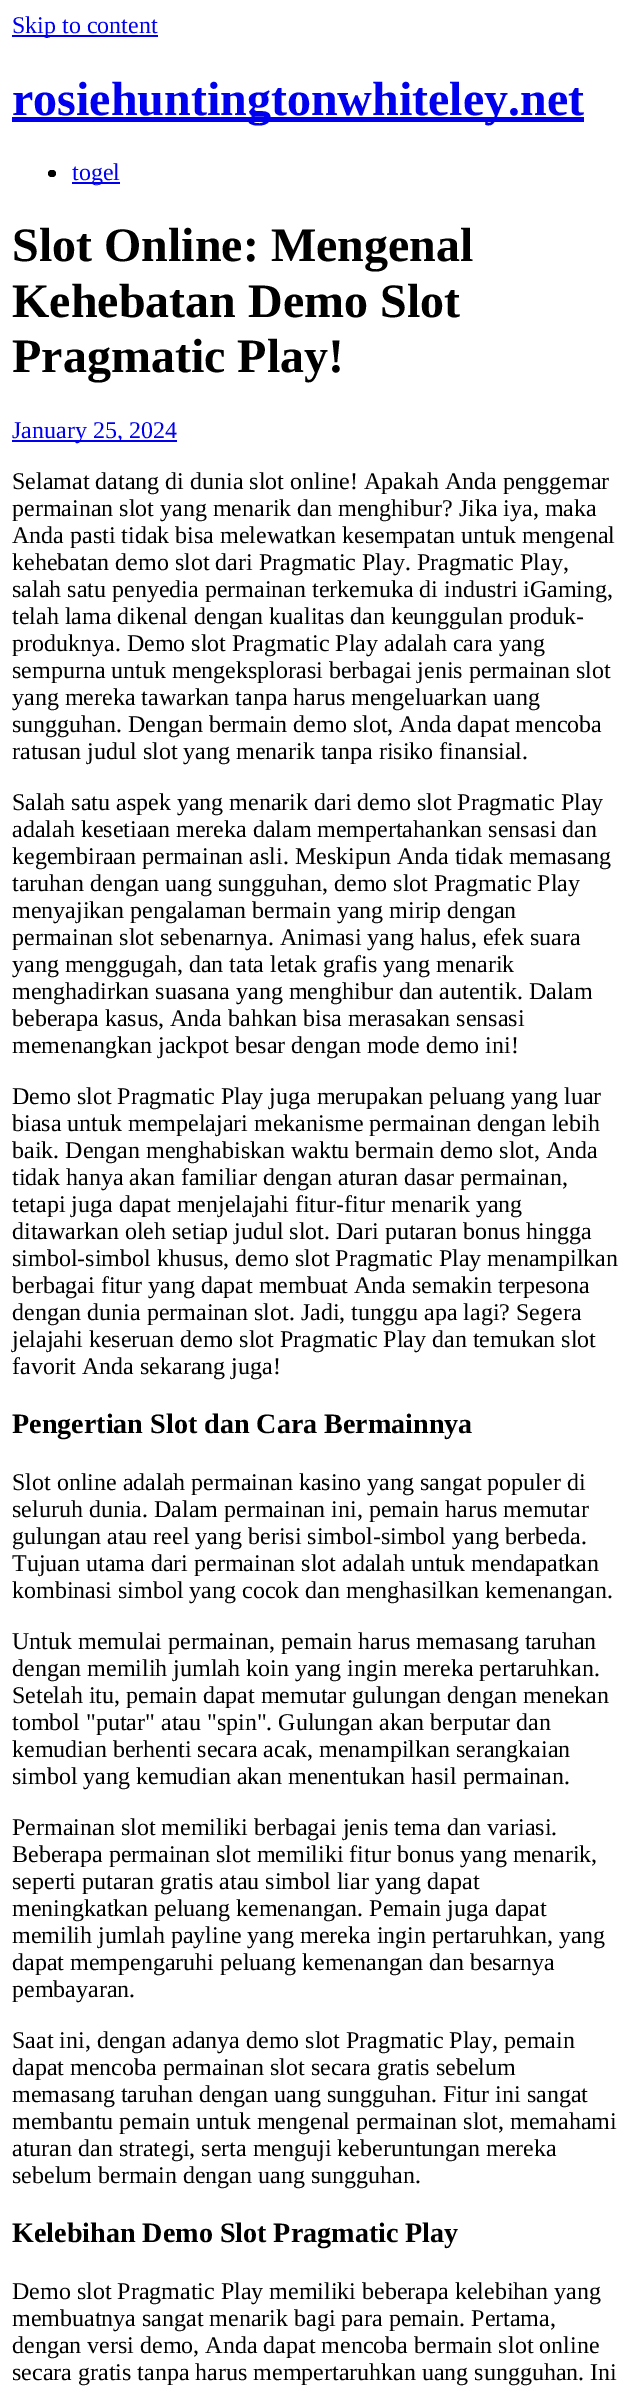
%!PS
<< /PageSize [630 2396] >> setpagedevice
/f/fill load def
/C { dup -16 bitshift 255 div exch dup -8 bitshift 255 and 255 div exch 255 and 255 div setrgbcolor } def
/F { [ exch dup neg 0 0 3 -1 roll 0 0 ] selectfont } def
/T { moveto show } def
/R { rectfill } def
/Q { 5 dict begin { /r /h /w /y /x } { exch def } forall
  x r add y moveto x w add y 2 copy h add r arct x w add y h add x 1 index r arct
  x y h add x y r arct x y 2 copy exch w add exch r arct closepath end } def
0 2396 translate 1 -1 scale
4 setmiterlimit
16#FFFFFF C
0 0 630 2396 R
16#0000EE C
12 35 146 2 R
/LiberationSerif-Regular 24 F
(Skip to content) 12 33 T
12 117 572 5 R
/LiberationSerif-Bold 48 F
(rosiehuntingtonwhiteley.net) 12 115 T
16#000000 C
48 170 8 7 3.5 Q f
16#0000EE C
72 182 48 2 R
/LiberationSerif-Regular 24 F
(togel) 72 180 T
/LiberationSerif-Bold 48 F
16#000000 C
(Slot Online: Mengenal) 12 261 T
(Kehebatan Demo Slot) 12 317 T
(Pragmatic Play!) 12 372 T
16#0000EE C
12 440 165 2 R
/LiberationSerif-Regular 24 F
(January 25, 2024) 12 438 T
16#000000 C
(Selamat datang di dunia slot online! Apakah Anda penggemar) 12 489 T
(permainan slot yang menarik dan menghibur? Jika iya, maka) 12 516 T
(Anda pasti tidak bisa melewatkan kesempatan untuk mengenal) 12 543 T
(kehebatan demo slot dari Pragmatic Play. Pragmatic Play,) 12 570 T
(salah satu penyedia permainan terkemuka di industri iGaming,) 12 597 T
(telah lama dikenal dengan kualitas dan keunggulan produk-) 12 624 T
(produknya. Demo slot Pragmatic Play adalah cara yang) 12 651 T
(sempurna untuk mengeksplorasi berbagai jenis permainan slot) 12 678 T
(yang mereka tawarkan tanpa harus mengeluarkan uang) 12 705 T
(sungguhan. Dengan bermain demo slot, Anda dapat mencoba) 12 732 T
(ratusan judul slot yang menarik tanpa risiko finansial.) 12 759 T
(Salah satu aspek yang menarik dari demo slot Pragmatic Play) 12 810 T
(adalah kesetiaan mereka dalam mempertahankan sensasi dan) 12 837 T
(kegembiraan permainan asli. Meskipun Anda tidak memasang) 12 864 T
(taruhan dengan uang sungguhan, demo slot Pragmatic Play) 12 891 T
(menyajikan pengalaman bermain yang mirip dengan) 12 918 T
(permainan slot sebenarnya. Animasi yang halus, efek suara) 12 945 T
(yang menggugah, dan tata letak grafis yang menarik) 12 972 T
(menghadirkan suasana yang menghibur dan autentik. Dalam) 12 999 T
(beberapa kasus, Anda bahkan bisa merasakan sensasi) 12 1026 T
(memenangkan jackpot besar dengan mode demo ini!) 12 1053 T
(Demo slot Pragmatic Play juga merupakan peluang yang luar) 12 1104 T
(biasa untuk mempelajari mekanisme permainan dengan lebih) 12 1131 T
(baik. Dengan menghabiskan waktu bermain demo slot, Anda) 12 1158 T
(tidak hanya akan familiar dengan aturan dasar permainan,) 12 1185 T
(tetapi juga dapat menjelajahi fitur-fitur menarik yang) 12 1212 T
(ditawarkan oleh setiap judul slot. Dari putaran bonus hingga) 12 1239 T
(simbol-simbol khusus, demo slot Pragmatic Play menampilkan) 12 1266 T
(berbagai fitur yang dapat membuat Anda semakin terpesona) 12 1293 T
(dengan dunia permainan slot. Jadi, tunggu apa lagi? Segera) 12 1320 T
(jelajahi keseruan demo slot Pragmatic Play dan temukan slot) 12 1347 T
(favorit Anda sekarang juga!) 12 1374 T
/LiberationSerif-Bold 28.1 F
(Pengertian Slot dan Cara Bermainnya) 12 1433 T
/LiberationSerif-Regular 24 F
(Slot online adalah permainan kasino yang sangat populer di) 12 1490 T
(seluruh dunia. Dalam permainan ini, pemain harus memutar) 12 1517 T
(gulungan atau reel yang berisi simbol-simbol yang berbeda.) 12 1544 T
(Tujuan utama dari permainan slot adalah untuk mendapatkan) 12 1571 T
(kombinasi simbol yang cocok dan menghasilkan kemenangan.) 12 1598 T
(Untuk memulai permainan, pemain harus memasang taruhan) 12 1649 T
(dengan memilih jumlah koin yang ingin mereka pertaruhkan.) 12 1676 T
(Setelah itu, pemain dapat memutar gulungan dengan menekan) 12 1703 T
(tombol "putar" atau "spin". Gulungan akan berputar dan) 12 1730 T
(kemudian berhenti secara acak, menampilkan serangkaian) 12 1757 T
(simbol yang kemudian akan menentukan hasil permainan.) 12 1784 T
(Permainan slot memiliki berbagai jenis tema dan variasi.) 12 1835 T
(Beberapa permainan slot memiliki fitur bonus yang menarik,) 12 1862 T
(seperti putaran gratis atau simbol liar yang dapat) 12 1889 T
(meningkatkan peluang kemenangan. Pemain juga dapat) 12 1916 T
(memilih jumlah payline yang mereka ingin pertaruhkan, yang) 12 1943 T
(dapat mempengaruhi peluang kemenangan dan besarnya) 12 1970 T
(pembayaran.) 12 1997 T
(Saat ini, dengan adanya demo slot Pragmatic Play, pemain) 12 2048 T
(dapat mencoba permainan slot secara gratis sebelum) 12 2075 T
(memasang taruhan dengan uang sungguhan. Fitur ini sangat) 12 2102 T
(membantu pemain untuk mengenal permainan slot, memahami) 12 2129 T
(aturan dan strategi, serta menguji keberuntungan mereka) 12 2156 T
(sebelum bermain dengan uang sungguhan.) 12 2183 T
/LiberationSerif-Bold 28.1 F
(Kelebihan Demo Slot Pragmatic Play) 12 2242 T
/LiberationSerif-Regular 24 F
(Demo slot Pragmatic Play memiliki beberapa kelebihan yang) 12 2299 T
(membuatnya sangat menarik bagi para pemain. Pertama,) 12 2326 T
(dengan versi demo, Anda dapat mencoba bermain slot online) 12 2353 T
(secara gratis tanpa harus mempertaruhkan uang sungguhan. Ini) 12 2380 T
showpage
